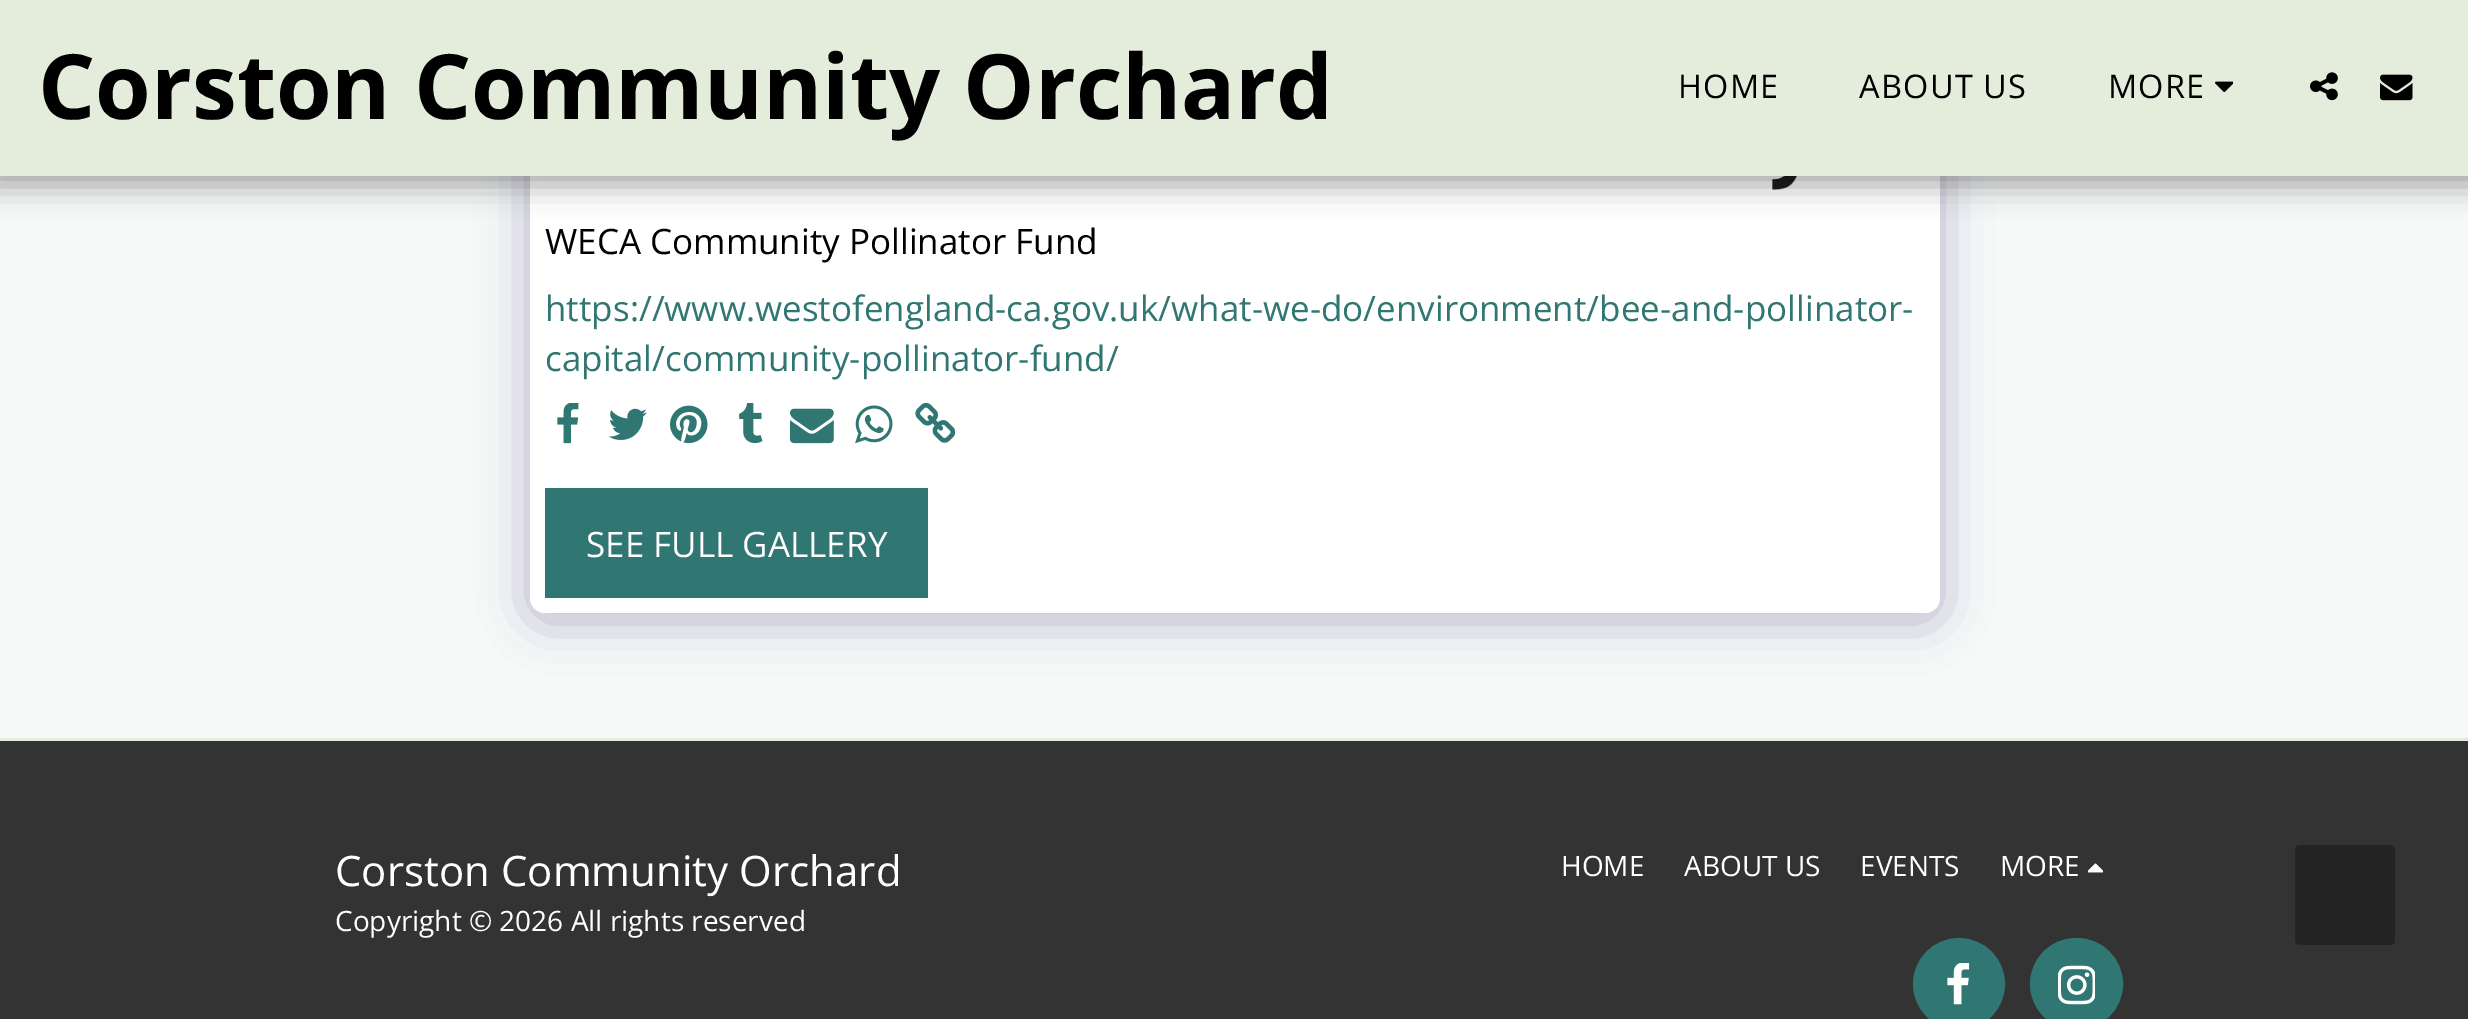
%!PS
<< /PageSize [2468 1019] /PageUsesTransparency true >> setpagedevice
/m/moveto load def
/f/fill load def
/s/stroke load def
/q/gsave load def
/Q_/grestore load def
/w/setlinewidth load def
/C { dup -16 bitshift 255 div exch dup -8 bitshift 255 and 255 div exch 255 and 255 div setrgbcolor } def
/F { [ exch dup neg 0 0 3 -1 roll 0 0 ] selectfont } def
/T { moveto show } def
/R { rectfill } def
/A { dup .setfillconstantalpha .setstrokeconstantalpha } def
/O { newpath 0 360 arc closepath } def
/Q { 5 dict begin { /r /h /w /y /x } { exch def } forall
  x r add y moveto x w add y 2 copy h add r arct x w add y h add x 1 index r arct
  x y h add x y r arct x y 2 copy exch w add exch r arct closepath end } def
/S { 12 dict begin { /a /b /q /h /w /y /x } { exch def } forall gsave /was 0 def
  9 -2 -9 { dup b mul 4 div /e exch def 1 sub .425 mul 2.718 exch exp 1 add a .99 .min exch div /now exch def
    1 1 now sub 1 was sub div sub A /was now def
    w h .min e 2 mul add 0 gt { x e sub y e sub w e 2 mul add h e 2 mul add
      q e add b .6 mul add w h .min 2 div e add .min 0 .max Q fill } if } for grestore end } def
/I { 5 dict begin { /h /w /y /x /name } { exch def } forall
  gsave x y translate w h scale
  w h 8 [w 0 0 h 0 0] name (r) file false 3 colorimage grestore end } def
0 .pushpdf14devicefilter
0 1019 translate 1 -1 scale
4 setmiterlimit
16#F7F9F8 C
0 0 2468 1019 R
16#4D3F7A C
530 -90 1410 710 15 25 .4 S
16#FFFFFF C
530 -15 1410 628 15 Q f
(4.rgb) 545 176 1369 14 I
16#000000 C
-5 0 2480 185 0 15 .35 S
16#E4EDDB C
0 0 2468 176 R
/OpenSans-Bold 90 F
16#000000 C
(Corston Community Orchard) 38 119 T
/OpenSans-Regular 32.5 F
1678 98 m 1.25 0 (HOME) ashow
1859 98 m 1.25 0 (ABOUT US) ashow
2108 98 m 1.25 0 (MORE) ashow
(1.rgb) 2215 81 18 11 I
(2.rgb) 2310 72 28 29 I
(3.rgb) 2380 74 33 27 I
/OpenSans-Regular 35 F
(WECA Community Pollinator Fund) 545 254 T
16#307672 C
(https://www.westofengland-ca.gov.uk/what-we-do/environment/bee-and-pollinator-) 545 321 T
(capital/community-pollinator-fund/) 545 371 T
(5.rgb) 557 403 22 41 I
(6.rgb) 608 408 39 32 I
(7.rgb) 670 405 38 39 I
(8.rgb) 739 403 24 41 I
(9.rgb) 790 408 44 36 I
(10.rgb) 855 405 38 39 I
(11.rgb) 915 403 40 40 I
545 488 383 110 R
16#FFFFFF C
(SEE FULL GALLERY) 586 557 T
16#333333 C
0 741 2468 278 R
16#E4EDDB C
0 738 2468 3 R
/OpenSans-Regular 42 F
16#FFFFFF C
(Corston Community Orchard) 335 886 T
/OpenSans-Regular 28 F
(Copyright © 2026 All rights reserved) 335 931 T
(HOME) 1561 876 T
(ABOUT US) 1684 876 T
(EVENTS) 1860 876 T
(MORE) 2000 876 T
(12.rgb) 2088 863 15 10 I
16#307672 C
1959 984 44.5 O q f Q_
3 w
s
(13.rgb) 1947 963 23 42 I
2031.5 939.5 90 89 44.5 Q q f Q_
s
(14.rgb) 2058 965 37 40 I
16#242424 C
2295 845 100 100 5 Q f
.poppdf14devicefilter showpage
